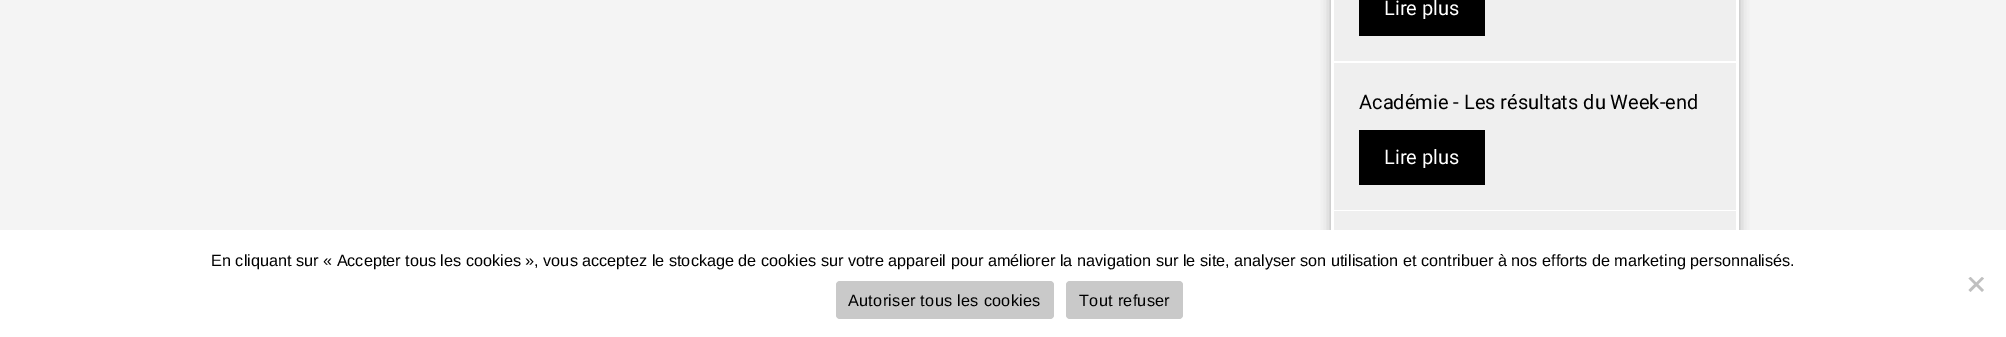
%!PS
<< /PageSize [2006 337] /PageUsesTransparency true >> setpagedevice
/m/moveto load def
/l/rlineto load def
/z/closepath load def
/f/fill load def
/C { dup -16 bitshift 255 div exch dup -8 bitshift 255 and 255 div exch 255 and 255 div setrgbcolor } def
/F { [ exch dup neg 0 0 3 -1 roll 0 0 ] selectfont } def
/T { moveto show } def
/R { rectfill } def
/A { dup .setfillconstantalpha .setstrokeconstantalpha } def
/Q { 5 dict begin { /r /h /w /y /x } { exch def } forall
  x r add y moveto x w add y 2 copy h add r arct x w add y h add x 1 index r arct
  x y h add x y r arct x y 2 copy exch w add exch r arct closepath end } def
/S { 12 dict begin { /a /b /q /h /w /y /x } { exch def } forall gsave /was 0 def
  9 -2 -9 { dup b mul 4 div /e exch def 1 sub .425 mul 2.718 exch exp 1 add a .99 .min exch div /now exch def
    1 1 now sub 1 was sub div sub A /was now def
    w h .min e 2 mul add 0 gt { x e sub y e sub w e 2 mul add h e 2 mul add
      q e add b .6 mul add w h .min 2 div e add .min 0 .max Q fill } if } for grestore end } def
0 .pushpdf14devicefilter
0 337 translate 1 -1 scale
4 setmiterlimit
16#F4F4F4 C
0 0 2006 337 R
16#000000 C
1334 -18 402 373 0 6 .5 S
16#FFFFFF C
1331 0 408 230 R
16#EFEFEF C
1334 0 402 61 R
16#000000 C
1359 0 126 36 R
/Roboto-Regular 20 F
16#FFFFFF C
(Lire plus) 1384 15 T
16#EFEFEF C
1334 63 402 147 R
16#000000 C
(Académie - Les résultats du Week-end) 1359 109 T
1359 130 126 55 R
16#FFFFFF C
(Lire plus) 1384 164 T
16#EFEFEF C
1334 211 402 19 R
16#FFFFFF C
0 230 2006 107 R
/LiberationSans-Regular 16.25 F
16#000000 C
(En cliquant sur « Accepter tous les cookies », vous acceptez le stockage de cookies sur votre appareil pour améliorer la navigation sur le site, analyser son utilisation et contribuer à nos efforts de marketing personnalisés.) 211 266 T
16#C0C0C0 C
1982 277 m 2 1.5 l -13.5 13.5 l -2 -2 l z f
1968.5 278.5 m 2 -1.5 l 13.5 13 l -2 2 l z f
16#C9C9C9 C
836 281 218 38 4 Q f
16#000000 C
848 306 m .3 0 (Autoriser tous les cookies) ashow
16#C9C9C9 C
1066 281 117 38 4 Q f
16#000000 C
1079 306 m .3 0 (Tout refuser) ashow
.poppdf14devicefilter showpage
